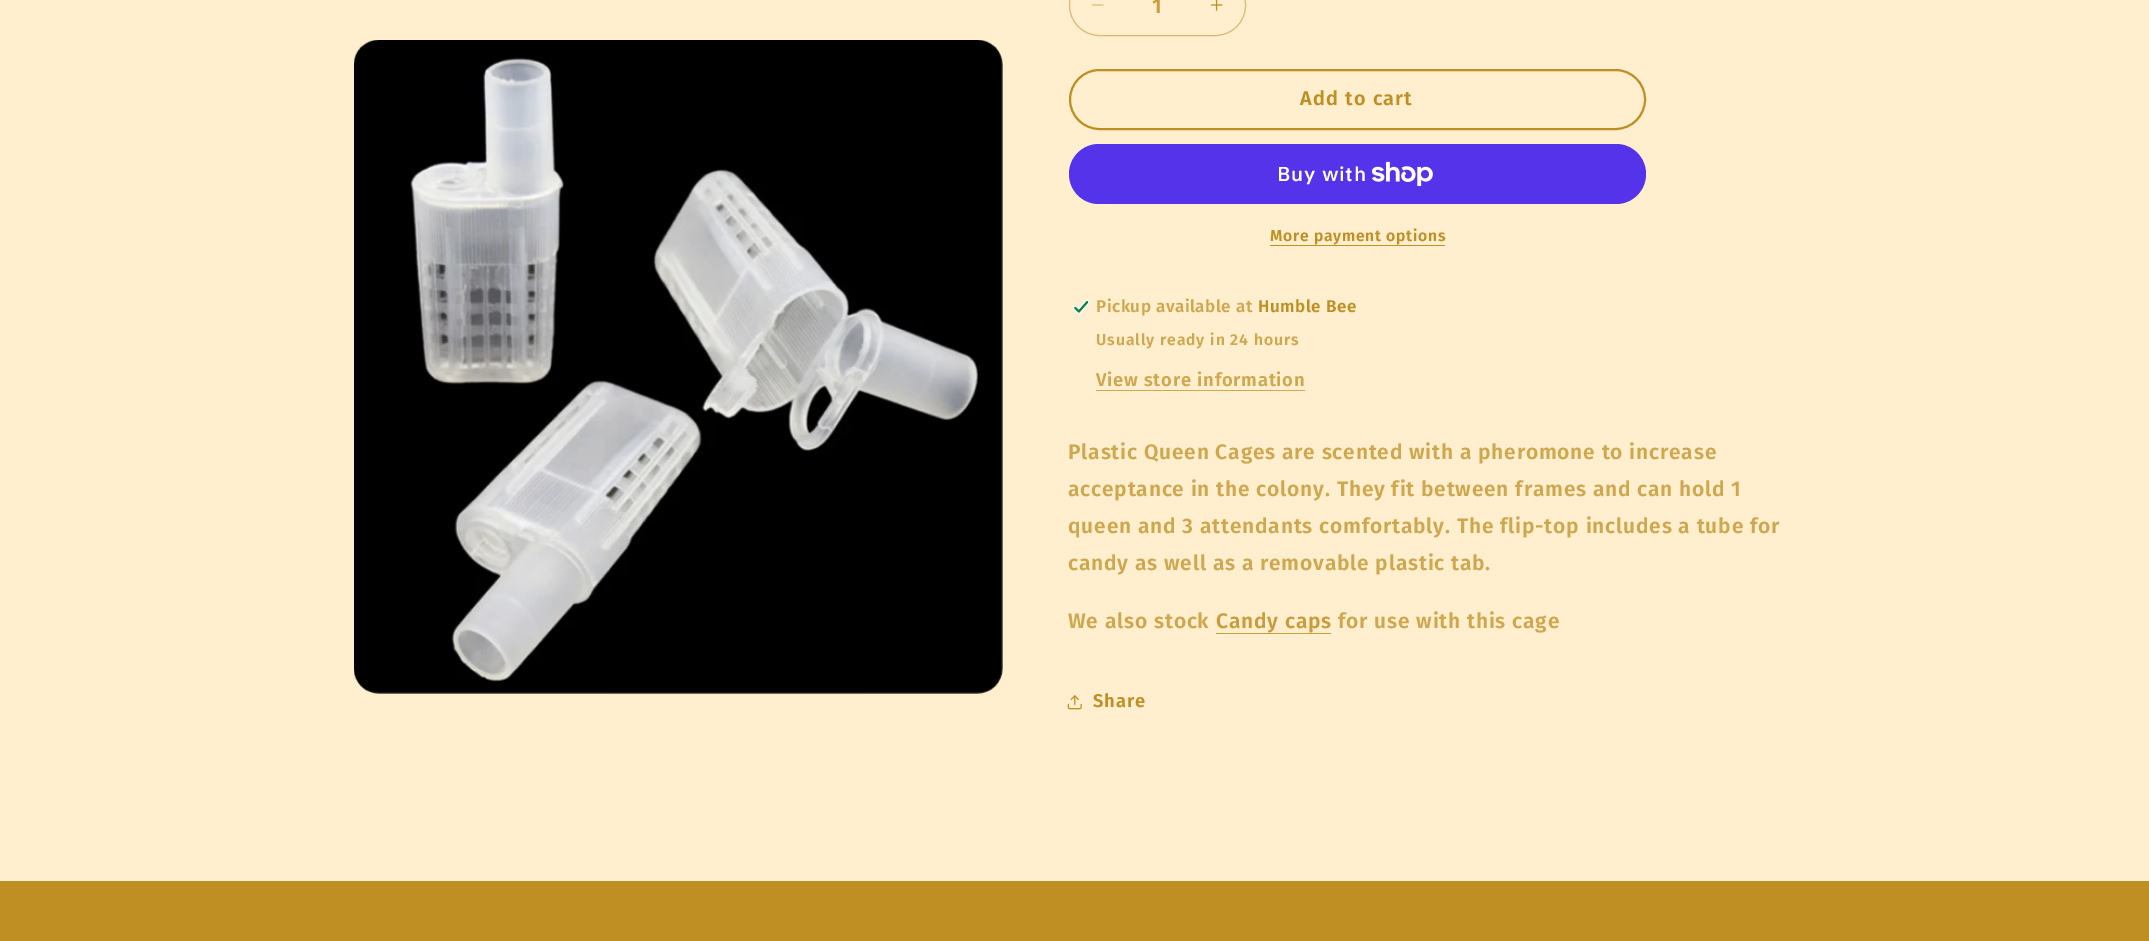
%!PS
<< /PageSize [2149 941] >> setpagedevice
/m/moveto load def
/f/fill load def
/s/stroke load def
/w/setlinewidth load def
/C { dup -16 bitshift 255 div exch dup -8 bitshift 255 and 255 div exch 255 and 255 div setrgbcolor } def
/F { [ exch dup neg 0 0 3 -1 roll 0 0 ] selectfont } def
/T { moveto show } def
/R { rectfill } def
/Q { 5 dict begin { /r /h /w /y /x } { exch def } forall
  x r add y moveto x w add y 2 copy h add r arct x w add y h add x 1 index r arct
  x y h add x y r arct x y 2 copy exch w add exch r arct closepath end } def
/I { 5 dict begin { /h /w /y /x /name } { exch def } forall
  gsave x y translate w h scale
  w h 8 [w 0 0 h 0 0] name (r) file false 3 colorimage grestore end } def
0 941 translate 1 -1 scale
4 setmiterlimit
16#FFEFCE C
0 0 2149 941 R
(1.rgb) 354 40 649 654 I
(2.rgb) 1092 4 12 2 I
(3.rgb) 1210 0 13 11 I
16#DCBA71 C
1069.5 -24.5 176 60 30 Q s
/FiraSans-SemiBold 21 F
16#C99D3E C
(1) 1152 13 T
16#BF8F24 C
2 w
1070 70 575 59 29.5 Q s
/FiraSans-SemiBold 19.75 F
1300 105 m 1.25 0 (Add to cart) ashow
16#5433EB C
1069 144 577 60 30 Q f
/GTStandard-SemiBold 20 F
16#FFFFFF C
1277 181 m .8 0 (Buy with) ashow
(4.rgb) 1371 161 62 25 I
/FiraSans-SemiBold 15.75 F
16#BF8F24 C
1270 241 m .7 0 (More payment options) ashow
1270 245 175 1 R
(5.rgb) 1073 299 17 15 I
/FiraSans-SemiBold 17 F
16#CFA74F C
1096 312 m .5 0 (Pickup available at) ashow
16#BF8F24 C
1258 312 m .5 0 (Humble Bee) ashow
/FiraSans-SemiBold 15.75 F
16#CFA74F C
1096 345 m .9 0 (Usually ready in 24 hours) ashow
/FiraSans-SemiBold 18.4 F
1096 386 m .8 0 (View store information) ashow
1096 390 209 1 R
/FiraSans-SemiBold 21 F
1068 459 m .8 0 (Plastic Queen Cages are scented with a pheromone to increase) ashow
1068 496 m .8 0 (acceptance in the colony. They fit between frames and can hold 1) ashow
1068 533 m .8 0 (queen and 3 attendants comfortably. The flip-top includes a tube for) ashow
1068 570 m .8 0 (candy as well as a removable plastic tab.) ashow
1068 628 m .8 0 (We also stock) ashow
16#C99D3E C
1216 628 m .8 0 (Candy caps) ashow
1216 633 115 1 R
16#CFA74F C
1338 628 m .8 0 (for use with this cage) ashow
(6.rgb) 1067 695 15 15 I
/FiraSans-SemiBold 18.4 F
16#BF8F24 C
1093 707 m .8 0 (Share) ashow
0 881 2149 60 R
showpage
